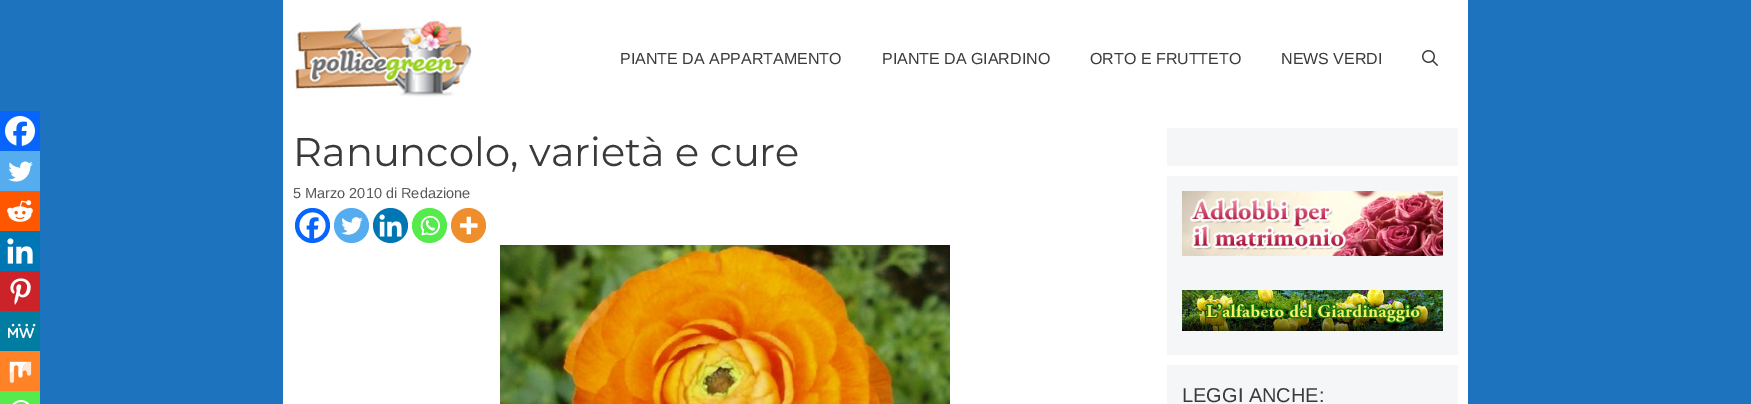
%!PS
<< /PageSize [1751 404] >> setpagedevice
/f/fill load def
/C { dup -16 bitshift 255 div exch dup -8 bitshift 255 and 255 div exch 255 and 255 div setrgbcolor } def
/F { [ exch dup neg 0 0 3 -1 roll 0 0 ] selectfont } def
/T { moveto show } def
/R { rectfill } def
/O { newpath 0 360 arc closepath } def
/I { 5 dict begin { /h /w /y /x /name } { exch def } forall
  gsave x y translate w h scale
  w h 8 [w 0 0 h 0 0] name (r) file false 3 colorimage grestore end } def
0 404 translate 1 -1 scale
4 setmiterlimit
16#1E73BE C
0 0 1751 404 R
16#FFFFFF C
283 0 1185 404 R
(1.rgb) 293 20 179 77 I
/LiberationSans-Regular 16 F
16#3A3A3A C
(PIANTE DA APPARTAMENTO) 620 64 T
(PIANTE DA GIARDINO) 882 64 T
(ORTO E FRUTTETO) 1090 64 T
(NEWS VERDI) 1281 64 T
(2.rgb) 1422 50 16 16 I
16#0765FE C
0 111 40 40 R
(3.rgb) 5 116 30 30 I
16#55ACEE C
0 151 40 40 R
(4.rgb) 8 161 25 21 I
16#FF5700 C
0 191 40 40 R
(5.rgb) 7 200 26 22 I
16#0077B5 C
0 231 40 40 R
(6.rgb) 7 238 26 26 I
16#CC2329 C
0 271 40 40 R
(7.rgb) 10 278 21 27 I
16#007DA1 C
0 311 40 40 R
(8.rgb) 8 323 28 16 I
16#FF8226 C
0 351 40 40 R
(9.rgb) 9 361 23 22 I
16#55EB4C C
0 391 40 13 R
(10.rgb) 12 400 18 4 I
16#0765FE C
312.5 225.5 17.5 O f
(11.rgb) 299 212 27 27 I
16#55ACEE C
351.5 225.5 17.5 O f
(12.rgb) 341 217 22 18 I
16#0077B5 C
390.5 225.5 17.5 O f
(13.rgb) 379 214 23 23 I
16#55EB4C C
429.5 225.5 17.5 O f
(14.rgb) 420 215 20 21 I
16#EE8E2D C
468.5 225.5 17.5 O f
(15.rgb) 460 216 18 19 I
(16.rgb) 500 245 450 159 I
/Montserrat-Regular 40 F
16#3A3A3A C
(Ranuncolo, varietà e cure) 293 166 T
/LiberationSans-Regular 14.5 F
16#595959 C
(5 Marzo 2010 di Redazione) 293 198 T
16#F4F6F7 C
1167 128 291 38 R
1167 176 291 179 R
(17.rgb) 1182 191 261 65 I
(18.rgb) 1182 290 261 41 I
1167 365 291 39 R
/LiberationSans-Regular 20 F
16#3A3A3A C
(LEGGI ANCHE:) 1182 402 T
showpage
